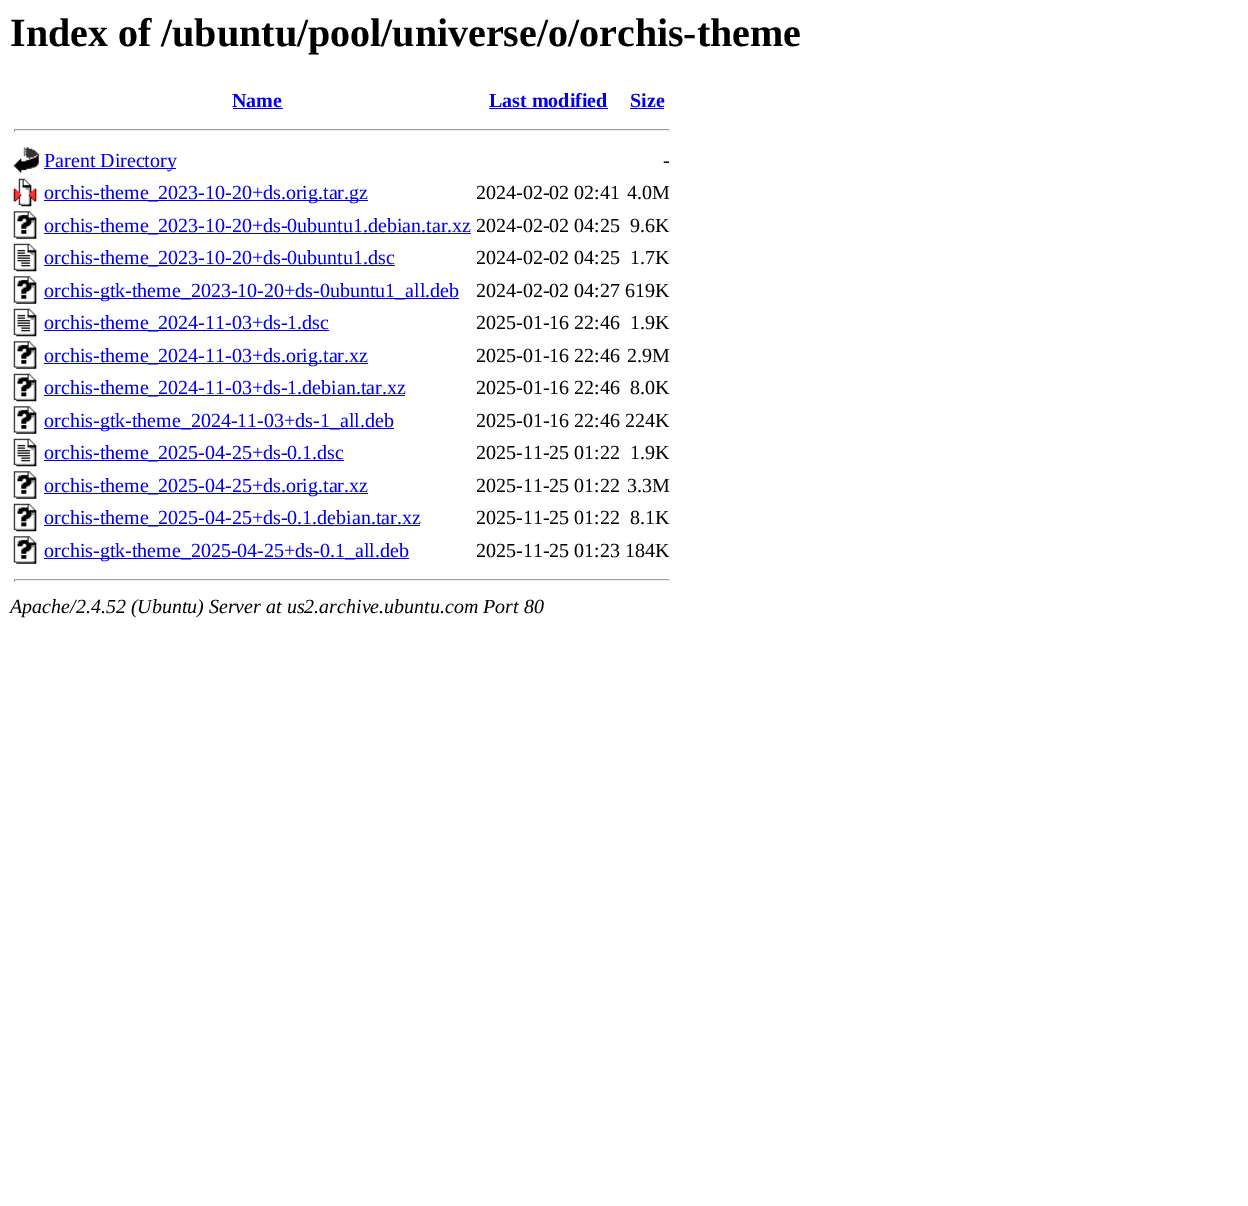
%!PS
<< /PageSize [1248 1206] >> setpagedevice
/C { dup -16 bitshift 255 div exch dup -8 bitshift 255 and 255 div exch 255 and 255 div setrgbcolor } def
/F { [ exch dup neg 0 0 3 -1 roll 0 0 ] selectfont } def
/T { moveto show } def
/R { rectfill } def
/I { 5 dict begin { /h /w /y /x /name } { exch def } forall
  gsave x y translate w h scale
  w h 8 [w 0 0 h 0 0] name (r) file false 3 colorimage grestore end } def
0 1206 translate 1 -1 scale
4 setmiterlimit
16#FFFFFF C
0 0 1248 1206 R
/LiberationSerif-Bold 40 F
16#000000 C
(Index of /ubuntu/pool/universe/o/orchis-theme) 10 46 T
/LiberationSerif-Bold 20 F
16#0000EE C
(Name) 232 107 T
233 108 50 1 R
(Last modified) 489 107 T
489 108 119 1 R
(Size) 630 107 T
630 108 34 1 R
16#9F9F9F C
14 129 656 1 R
16#EEEEEE C
669 129 1 3 R
14 130 656 1 R
16#9F9F9F C
14 129 1 3 R
(1.rgb) 13 147 26 26 I
16#0000EE C
44 168 132 1 R
/LiberationSerif-Regular 20 F
(Parent Directory) 44 167 T
16#000000 C
(-) 663 167 T
(2.rgb) 13 178 24 29 I
16#0000EE C
44 200 324 1 R
(orchis-theme_2023-10-20+ds.orig.tar.gz) 44 199 T
16#000000 C
(2024-02-02 02:41) 476 199 T
(4.0M) 627 199 T
(3.rgb) 13 211 24 28 I
16#0000EE C
44 233 427 1 R
(orchis-theme_2023-10-20+ds-0ubuntu1.debian.tar.xz) 44 232 T
16#000000 C
(2024-02-02 04:25) 476 232 T
(9.6K) 630 232 T
(4.rgb) 13 243 24 29 I
16#0000EE C
44 265 351 1 R
(orchis-theme_2023-10-20+ds-0ubuntu1.dsc) 44 264 T
16#000000 C
(2024-02-02 04:25) 476 264 T
(1.7K) 630 264 T
(5.rgb) 13 276 24 28 I
16#0000EE C
44 298 415 1 R
(orchis-gtk-theme_2023-10-20+ds-0ubuntu1_all.deb) 44 297 T
16#000000 C
(2024-02-02 04:27 619K) 476 297 T
(4.rgb) 13 308 24 29 I
16#0000EE C
44 330 285 1 R
(orchis-theme_2024-11-03+ds-1.dsc) 44 329 T
16#000000 C
(2025-01-16 22:46) 476 329 T
(1.9K) 630 329 T
(3.rgb) 13 341 24 28 I
16#0000EE C
44 363 324 1 R
(orchis-theme_2024-11-03+ds.orig.tar.xz) 44 362 T
16#000000 C
(2025-01-16 22:46) 476 362 T
(2.9M) 627 362 T
(6.rgb) 13 373 24 29 I
16#0000EE C
44 395 361 1 R
(orchis-theme_2024-11-03+ds-1.debian.tar.xz) 44 394 T
16#000000 C
(2025-01-16 22:46) 476 394 T
(8.0K) 630 394 T
(3.rgb) 13 406 24 28 I
16#0000EE C
44 428 350 1 R
(orchis-gtk-theme_2024-11-03+ds-1_all.deb) 44 427 T
16#000000 C
(2025-01-16 22:46 224K) 476 427 T
(4.rgb) 13 438 24 29 I
16#0000EE C
44 460 300 1 R
(orchis-theme_2025-04-25+ds-0.1.dsc) 44 459 T
16#000000 C
(2025-11-25 01:22) 476 459 T
(1.9K) 630 459 T
(3.rgb) 13 471 24 28 I
16#0000EE C
44 493 324 1 R
(orchis-theme_2025-04-25+ds.orig.tar.xz) 44 492 T
16#000000 C
(2025-11-25 01:22) 476 492 T
(3.3M) 627 492 T
(6.rgb) 13 503 24 29 I
16#0000EE C
44 525 376 1 R
(orchis-theme_2025-04-25+ds-0.1.debian.tar.xz) 44 524 T
16#000000 C
(2025-11-25 01:22) 476 524 T
(8.1K) 630 524 T
(3.rgb) 13 536 24 28 I
16#0000EE C
44 558 365 1 R
(orchis-gtk-theme_2025-04-25+ds-0.1_all.deb) 44 557 T
16#000000 C
(2025-11-25 01:23 184K) 476 557 T
16#9F9F9F C
14 579 656 1 R
16#EEEEEE C
669 579 1 3 R
14 580 656 1 R
16#9F9F9F C
14 579 1 3 R
/LiberationSerif-Italic 20 F
16#000000 C
(Apache/2.4.52 \(Ubuntu\) Server at us2.archive.ubuntu.com Port 80) 10 613 T
showpage
